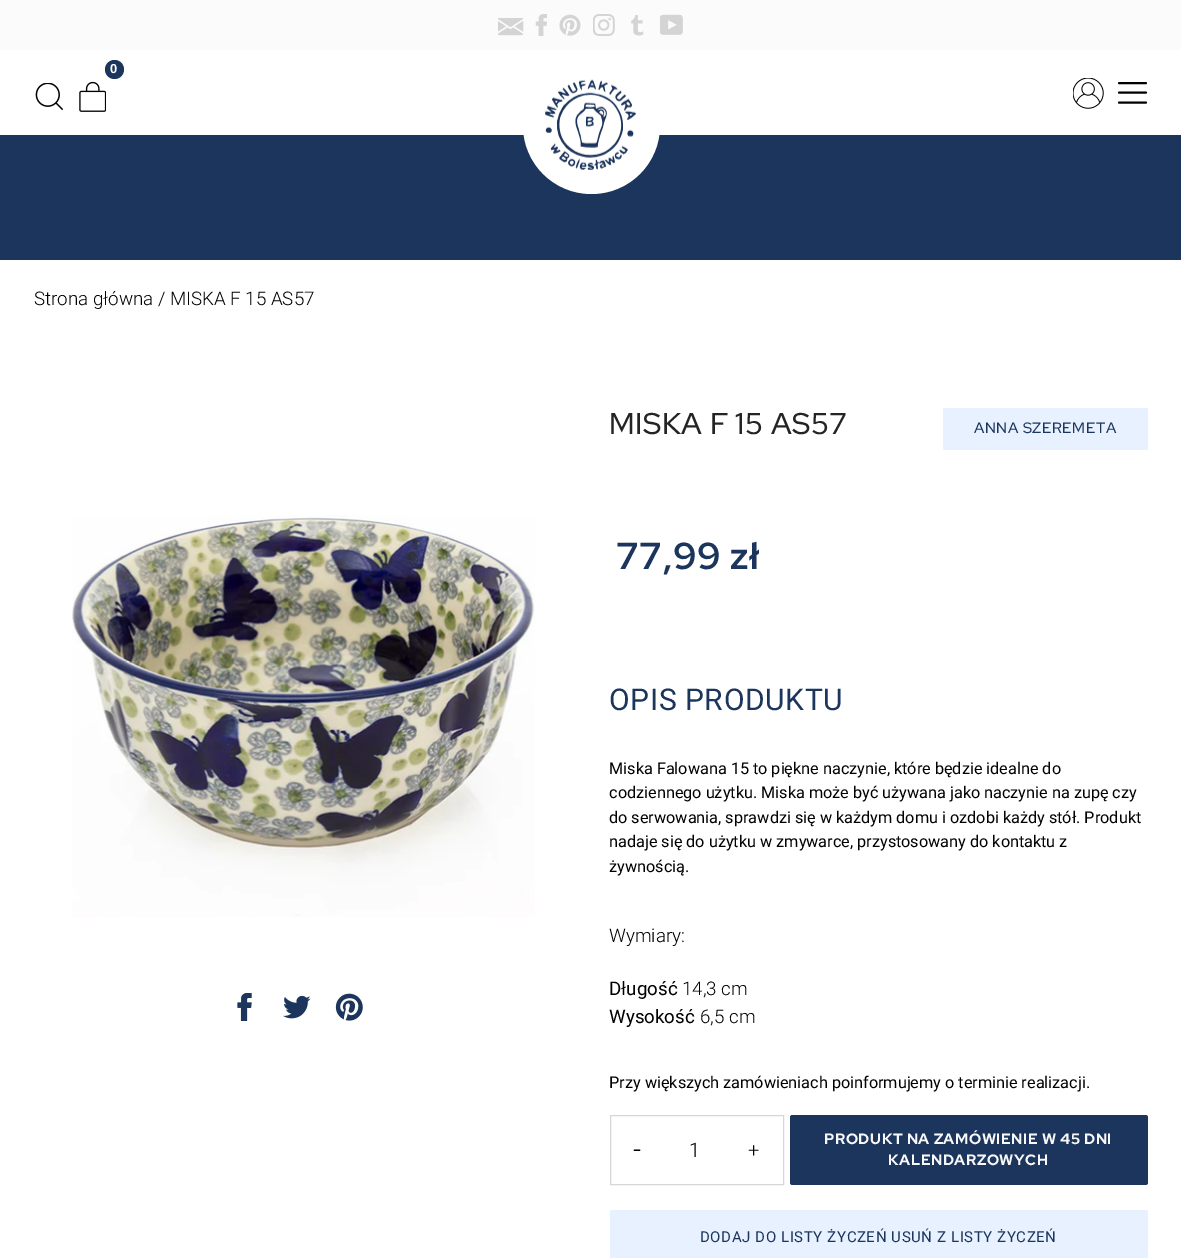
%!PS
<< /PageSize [1181 1258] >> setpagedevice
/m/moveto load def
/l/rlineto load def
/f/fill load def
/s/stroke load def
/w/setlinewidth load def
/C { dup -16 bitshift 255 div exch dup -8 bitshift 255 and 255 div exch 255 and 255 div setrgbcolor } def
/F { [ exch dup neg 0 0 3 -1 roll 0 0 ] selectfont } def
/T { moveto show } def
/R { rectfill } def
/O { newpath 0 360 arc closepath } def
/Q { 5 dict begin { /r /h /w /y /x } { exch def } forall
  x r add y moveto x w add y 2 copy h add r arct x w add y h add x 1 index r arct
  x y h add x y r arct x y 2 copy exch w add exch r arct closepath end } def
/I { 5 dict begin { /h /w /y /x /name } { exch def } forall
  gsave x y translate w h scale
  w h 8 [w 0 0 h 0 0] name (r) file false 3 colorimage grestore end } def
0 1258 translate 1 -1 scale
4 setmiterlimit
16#FFFFFF C
0 0 1181 1258 R
16#FBFBFB C
0 0 1181 50 R
(1.rgb) 498 18 26 18 I
(2.rgb) 535 14 12 22 I
(3.rgb) 559 14 22 22 I
(4.rgb) 593 14 22 22 I
(5.rgb) 631 15 13 21 I
(6.rgb) 660 14 23 21 I
16#1C355D C
114.5 69.5 9.5 O f
/LiberationSans-Bold 13 F
16#FFFFFF C
(0) 110 73 T
(7.rgb) 79 81 27 31 I
16#1C355D C
0 135 1181 125 R
16#FFFFFF C
523 56 137 138 68.5 Q f
(8.rgb) 545 79 91 91 I
(9.rgb) 35 83 28 27 I
(10.rgb) 1073 78 31 31 I
16#000000 C
1.9 w
1 setlinecap
1119 83 m 27 0 l 1119 92.5 m 27 0 l 1119 102.5 m 27 0 l s
/Roboto-Light 18.75 F
(Strona główna / MISKA F 15 AS57) 34 305 T
(11.rgb) 72 515 463 402 I
(12.rgb) 237 993 15 28 I
(13.rgb) 283 995 28 24 I
(14.rgb) 335 993 28 28 I
/RedHatDisplay-Medium 30 F
16#242424 C
609 434 m .6 0 (MISKA F 15 AS57) ashow
16#E8F1FF C
943 408 205 42 R
/RedHatDisplay-Medium 15 F
16#1C355D C
974 433 m .6 0 (ANNA SZEREMETA) ashow
/RedHatDisplay-Bold 37.5 F
616 569 m .75 0 (77,99 zł) ashow
/Roboto-Regular 30 F
609 710 m .6 0 (OPIS PRODUKTU) ashow
/Roboto-Regular 16.25 F
16#000000 C
(Miska Falowana 15 to piękne naczynie, które będzie idealne do) 609 774 T
(codziennego użytku. Miska może być używana jako naczynie na zupę czy) 609 798 T
(do serwowania, sprawdzi się w każdym domu i ozdobi każdy stół. Produkt) 609 823 T
(nadaje się do użytku w zmywarce, przystosowany do kontaktu z) 609 847 T
(żywnością.) 609 872 T
/Roboto-Light 18.75 F
(Wymiary:) 609 942 T
/Roboto-Regular 18.75 F
(Długość) 609 995 T
/Roboto-Light 18.75 F
(14,3 cm) 682 995 T
/Roboto-Regular 18.75 F
(Wysokość) 609 1023 T
/Roboto-Light 18.75 F
(6,5 cm) 700 1023 T
/Roboto-Regular 16.25 F
(Przy większych zamówieniach poinformujemy o terminie realizacji.) 609 1088 T
16#D6D6D6 C
1 w
0 setlinecap
610.5 1115.5 173 69 rectstroke
/Roboto-Light 28 F
16#000000 C
(-) 633 1159 T
/Roboto-Light 20 F
(1) 689 1157 T
(+) 748 1157 T
16#1C355D C
790 1115 358 70 2.5 Q f
/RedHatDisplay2-Bold 15 F
16#F8F8F8 C
824 1144 m .6 0 (PRODUKT NA ZAMÓWIENIE W 45 DNI) ashow
888 1165 m .6 0 (KALENDARZOWYCH) ashow
16#E8F1FF C
610 1210 538 48 R
/Roboto-Regular 15 F
16#1C355D C
700 1242 m .6 0 (DODAJ DO LISTY ŻYCZEŃ USUŃ Z LISTY ŻYCZEŃ) ashow
showpage
